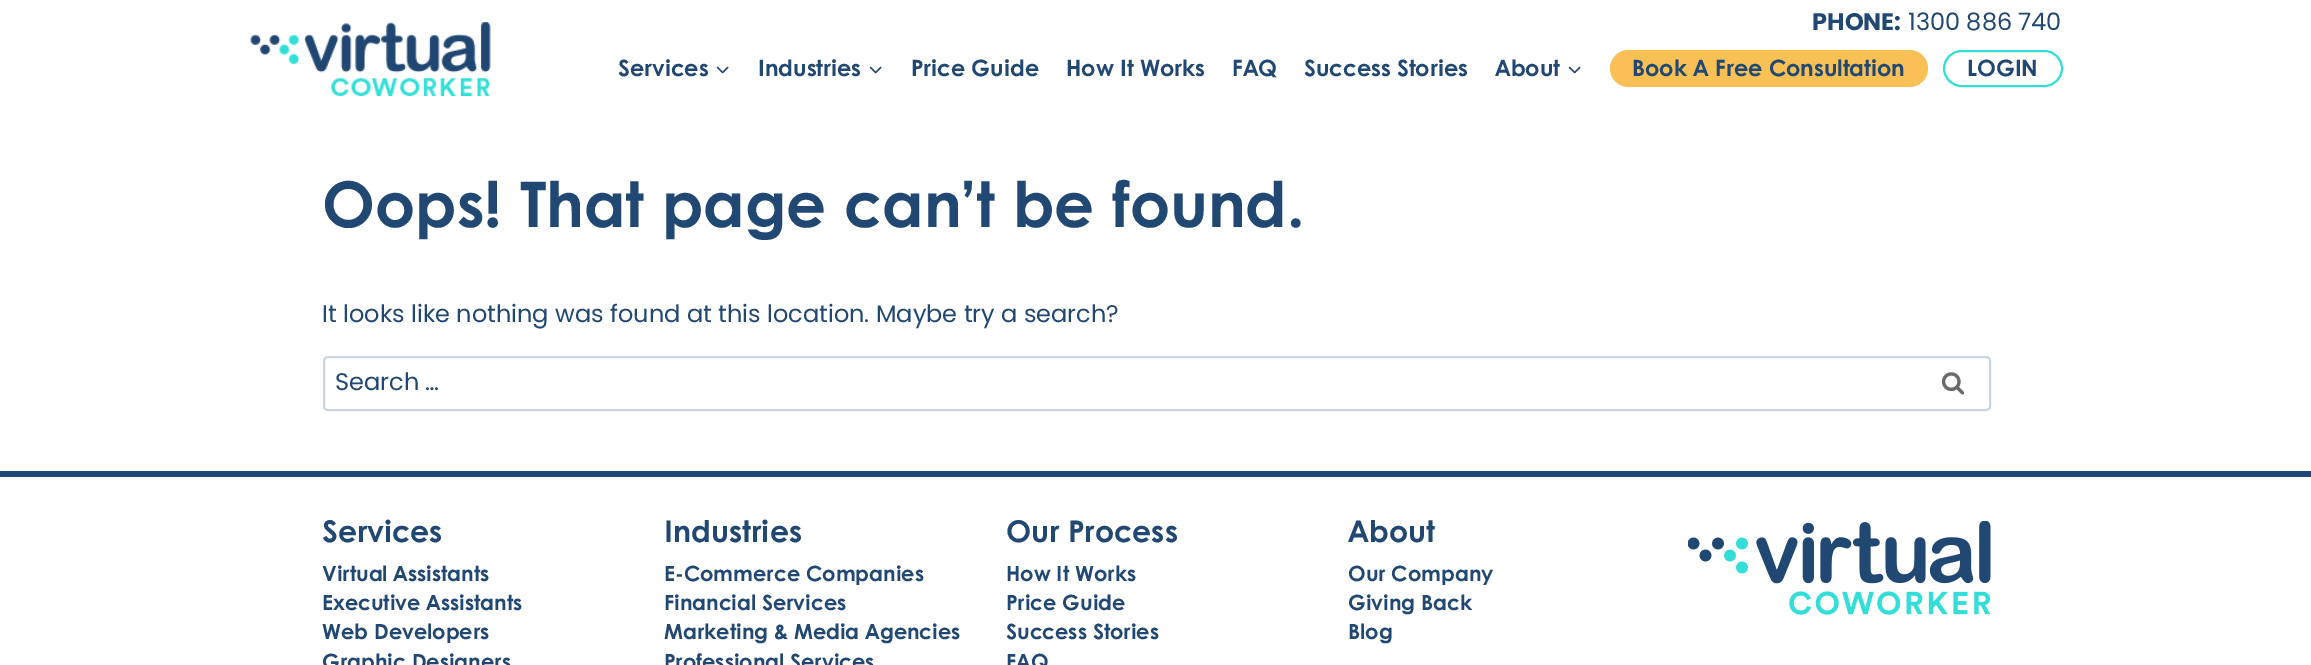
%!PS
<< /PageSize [2311 665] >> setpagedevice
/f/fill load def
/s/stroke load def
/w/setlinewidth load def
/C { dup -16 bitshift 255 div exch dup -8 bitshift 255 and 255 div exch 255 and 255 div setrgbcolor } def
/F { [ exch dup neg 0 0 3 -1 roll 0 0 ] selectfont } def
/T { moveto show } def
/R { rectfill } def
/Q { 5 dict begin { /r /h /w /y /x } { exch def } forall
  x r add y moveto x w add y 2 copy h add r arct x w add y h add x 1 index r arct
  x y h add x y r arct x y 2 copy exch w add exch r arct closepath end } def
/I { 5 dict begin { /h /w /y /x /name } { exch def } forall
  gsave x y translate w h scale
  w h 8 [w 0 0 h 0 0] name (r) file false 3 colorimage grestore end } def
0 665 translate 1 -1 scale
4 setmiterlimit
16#FFFFFF C
0 0 2311 665 R
/Poppins-Bold 24 F
16#214873 C
(PHONE:) 1812 30 T
/Poppins-Regular 24 F
(1300 886 740) 1908 30 T
(1.rgb) 250 21 241 75 I
/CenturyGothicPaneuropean-Bold 22.5 F
(Services) 618 76 T
(2.rgb) 716 66 13 8 I
(Industries) 758 76 T
(2.rgb) 869 66 13 8 I
(Price Guide) 911 76 T
(How It Works) 1066 76 T
(FAQ) 1232 76 T
(Success Stories) 1304 76 T
(About) 1495 76 T
(2.rgb) 1568 66 13 8 I
16#F9C056 C
1610 50 318 37 18.5 Q f
16#214873 C
(Book A Free Consultation) 1632 76 T
16#33DED8 C
2 w
1944 51 118 35 17.5 Q s
16#214873 C
(LOGIN) 1967 76 T
/CenturyGothicPaneuropean-Bold 63 F
(Oops! That page can’t be found.) 322 227 T
/Poppins-Regular 24 F
(It looks like nothing was found at this location. Maybe try a search?) 322 322 T
16#CBD5E0 C
324 357 1666 53 4 Q s
16#214873 C
(Search …) 335 390 T
(3.rgb) 1941 372 24 23 I
0 471 2311 6 R
/CenturyGothicPaneuropean-Bold 30 F
(Services) 322 542 T
/CenturyGothicPaneuropean-Bold 21 F
(Virtual Assistants) 322 581 T
(Executive Assistants) 322 610 T
(Web Developers) 322 639 T
(Graphic Designers) 322 669 T
/CenturyGothicPaneuropean-Bold 30 F
(Industries) 664 542 T
/CenturyGothicPaneuropean-Bold 21 F
(E-Commerce Companies) 664 581 T
(Financial Services) 664 610 T
(Marketing & Media Agencies) 664 639 T
(Professional Services) 664 669 T
/CenturyGothicPaneuropean-Bold 30 F
(Our Process) 1006 542 T
/CenturyGothicPaneuropean-Bold 21 F
(How It Works) 1006 581 T
(Price Guide) 1006 610 T
(Success Stories) 1006 639 T
(FAQ) 1006 669 T
/CenturyGothicPaneuropean-Bold 30 F
(About) 1348 542 T
/CenturyGothicPaneuropean-Bold 21 F
(Our Company) 1348 581 T
(Giving Back) 1348 610 T
(Blog) 1348 639 T
(4.rgb) 1688 521 303 94 I
showpage
